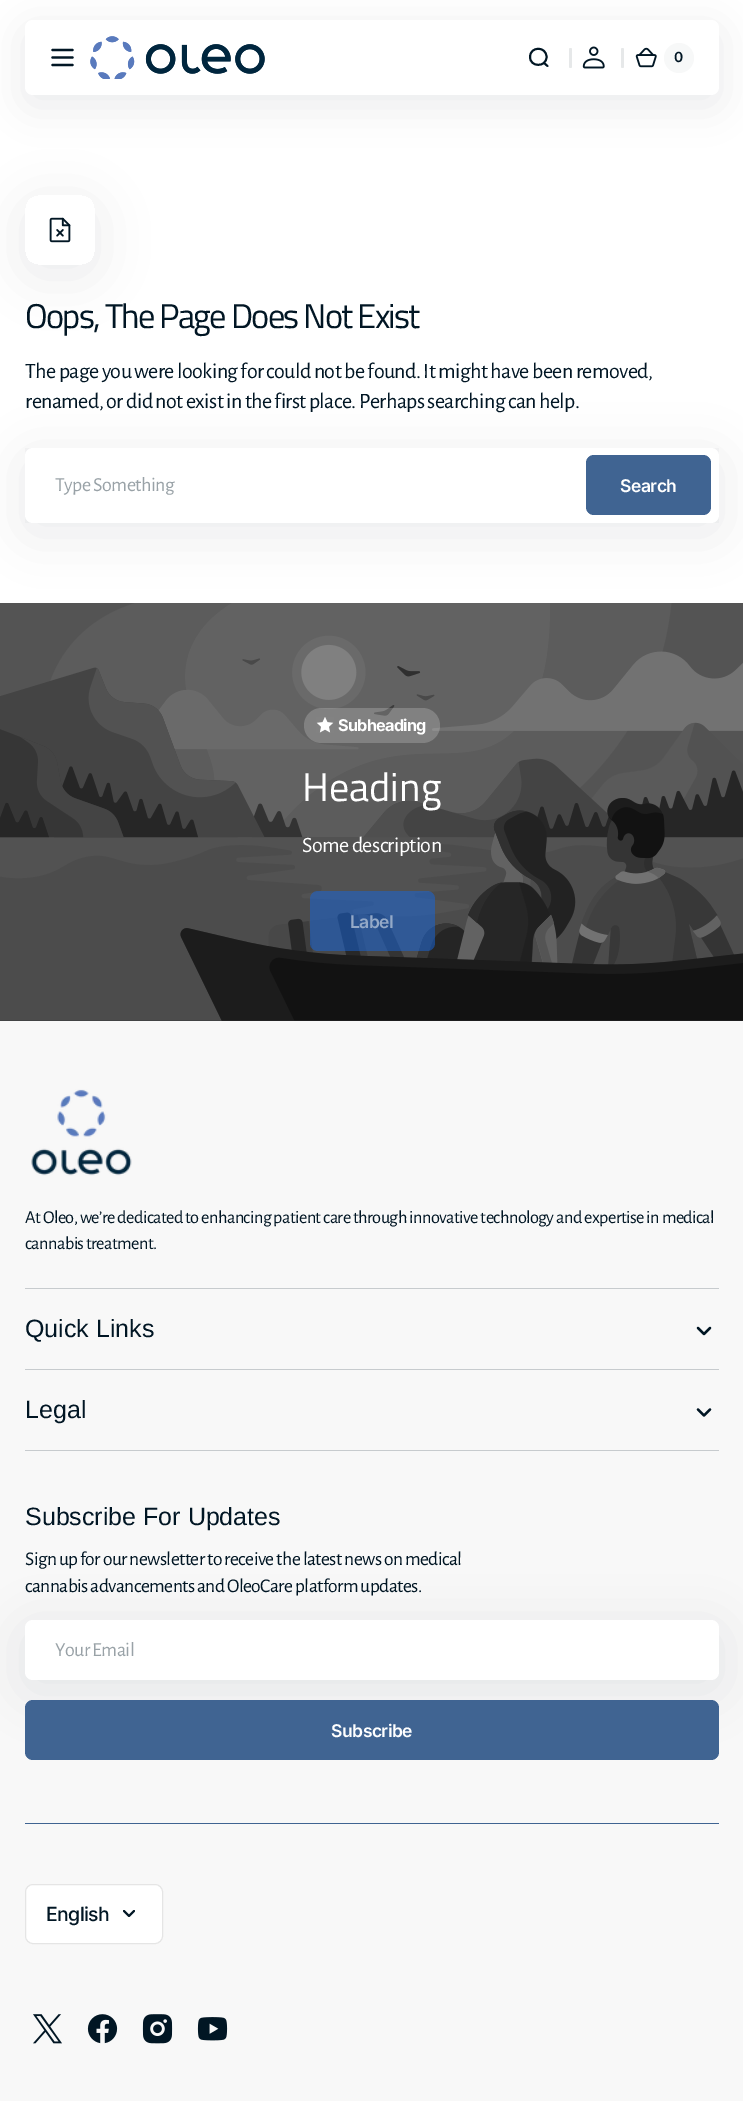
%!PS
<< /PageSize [743 2101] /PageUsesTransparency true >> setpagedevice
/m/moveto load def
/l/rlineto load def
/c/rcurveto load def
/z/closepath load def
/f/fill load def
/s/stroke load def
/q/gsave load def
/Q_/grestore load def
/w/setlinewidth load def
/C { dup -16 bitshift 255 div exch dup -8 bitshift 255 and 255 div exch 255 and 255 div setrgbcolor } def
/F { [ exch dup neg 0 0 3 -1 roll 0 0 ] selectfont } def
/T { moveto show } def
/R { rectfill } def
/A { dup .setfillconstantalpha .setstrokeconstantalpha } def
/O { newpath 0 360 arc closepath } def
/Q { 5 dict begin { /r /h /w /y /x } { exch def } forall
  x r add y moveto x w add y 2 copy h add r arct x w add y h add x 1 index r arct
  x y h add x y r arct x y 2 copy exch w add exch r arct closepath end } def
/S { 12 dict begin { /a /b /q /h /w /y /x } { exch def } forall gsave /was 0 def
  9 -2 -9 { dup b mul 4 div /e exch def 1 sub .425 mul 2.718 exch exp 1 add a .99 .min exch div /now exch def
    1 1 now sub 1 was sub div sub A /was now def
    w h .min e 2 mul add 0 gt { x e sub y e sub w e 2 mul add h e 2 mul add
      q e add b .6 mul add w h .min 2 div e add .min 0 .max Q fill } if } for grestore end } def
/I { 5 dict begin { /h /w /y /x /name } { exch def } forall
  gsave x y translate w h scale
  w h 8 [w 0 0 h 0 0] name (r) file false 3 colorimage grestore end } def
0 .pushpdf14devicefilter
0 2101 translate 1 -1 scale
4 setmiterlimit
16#FFFFFF C
0 0 743 2101 R
16#011624 C
25 30 694 75 8 19 .08 S
16#FFFFFF C
25 20 694 75 8 Q f
16#011624 C
2.2 w
1 setlinecap
52.5 50 m 20 0 l 52.5 57.5 m 20 0 l 52.5 65 m 20 0 l s
(1.rgb) 90 36 175 43 I
1.9 w
544 63 m 3.5 3 l 546.5 57 m 0 10.5 -16.5 10.5 -16.5 0 c 0 -11 16.5 -11 16.5 0 c z s
16#E6E8E9 C
569 48 3 20 1.5 Q f
(2.rgb) 582 46 23 23 I
621 48 3 20 1.5 Q f
(3.rgb) 635 47 22 21 I
16#F7F8F8 C
679 58 15 O f
/Inter-SemiBold 14 F
16#011624 C
674 62 m -.59 0 (0) ashow
q
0 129 m 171 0 l 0 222 l -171 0 l z 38 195 m 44 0 l 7 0 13 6 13 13 c 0 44 l 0 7 -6 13 -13 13 c -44 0 l -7 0 -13 -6 -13 -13 c 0 -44 l 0 -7 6 -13 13 -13 c z eoclip newpath
25 205 70 70 13 25 .08 S
Q_
(4.rgb) 49 217 22 26 I
/TitilliumWeb-Regular 34.4 F
25 328 m -1.75 0 (Oops, The Page Does Not Exist) ashow
/AlegreyaSans-Regular 22 F
25 378 m -.59 0 (The page you were looking for could not be found. It might have been removed,) ashow
25 408 m -.59 0 (renamed, or did not exist in the first place. Perhaps searching can help.) ashow
16#F8F8F8 C
25 448 694 75 R
(5.rgb) 0 603 743 418 I
16#011624 C
25 458 694 75 8 25 .08 S
16#FFFFFF C
25 448 694 75 8 Q f
/AlegreyaSans-Regular 20 F
16#99A2A7 C
55 491 m -.6 0 (Type Something) ashow
16#406492 C
586 455 125 60 8 Q f
/Inter-SemiBold 17.5 F
16#FFFFFF C
620 492 m -.5 0 (Search) ashow
0.2 A
304 708 136 35 17.5 Q f
1 A
(6.rgb) 316 717 18 16 I
/Inter-Bold 16.25 F
338 731 m -.75 0 (Subheading) ashow
/TitilliumWeb-Regular 40 F
(Heading) 302 801 T
/AlegreyaSans-Regular 22 F
302 852 m -.59 0 (Some description) ashow
0.5 A
16#1566E0 C
310 891 125 60 8 Q f
/Inter-SemiBold 17.5 F
1 A
16#94A9C7 C
350 928 m -.5 0 (Label) ashow
16#F8F8F8 C
0 1021 743 1080 R
(7.rgb) 31 1089 101 87 I
/AlegreyaSans-Regular 18.25 F
16#011624 C
25 1223 m -.59 0 (At Oleo, we’re dedicated to enhancing patient care through innovative technology and expertise in medical) ashow
25 1249 m -.59 0 (cannabis treatment.) ashow
16#C7CBCE C
25 1288 694 1 R
25 1369 694 1 R
/LiberationSans-Regular 25 F
16#011624 C
(Quick Links) 25 1337 T
2.2 w
1 setlinejoin
710 1328 m -6 6 l -6 -6 l s
16#C7CBCE C
25 1450 694 1 R
16#011624 C
(Legal) 25 1418 T
710 1409.5 m -6 6 l -6 -6 l s
(Subscribe For Updates) 25 1525 T
/AlegreyaSans-Regular 19.5 F
25 1565 m -.59 0 (Sign up for our newsletter to receive the latest news on medical) ashow
25 1592 m -.59 0 (cannabis advancements and OleoCare platform updates.) ashow
25 1630 694 60 8 25 .08 S
16#FFFFFF C
25 1620 694 60 8 Q f
/AlegreyaSans-Regular 20 F
16#99A2A7 C
55 1656 m -.6 0 (Your Email) ashow
16#406492 C
25 1700 694 60 8 Q f
/Inter-SemiBold 17.5 F
16#FFFFFF C
331 1737 m -.5 0 (Subscribe) ashow
16#406492 C
25 1823 694 1 R
16#FFFFFF C
25.5 1884.5 137 59 7.5 Q q f Q_
16#E5E5E5 C
1 w
0 setlinecap
0 setlinejoin
s
/Inter-Medium 19.5 F
16#011624 C
46 1921 m -.59 0 (English) ashow
1.9 w
1 setlinecap
1 setlinejoin
134 1911 m -5 5 l -5 -5 l s
(8.rgb) 33 2014 29 30 I
(9.rgb) 87 2014 31 30 I
(10.rgb) 142 2014 31 30 I
(11.rgb) 197 2017 31 24 I
.poppdf14devicefilter showpage
